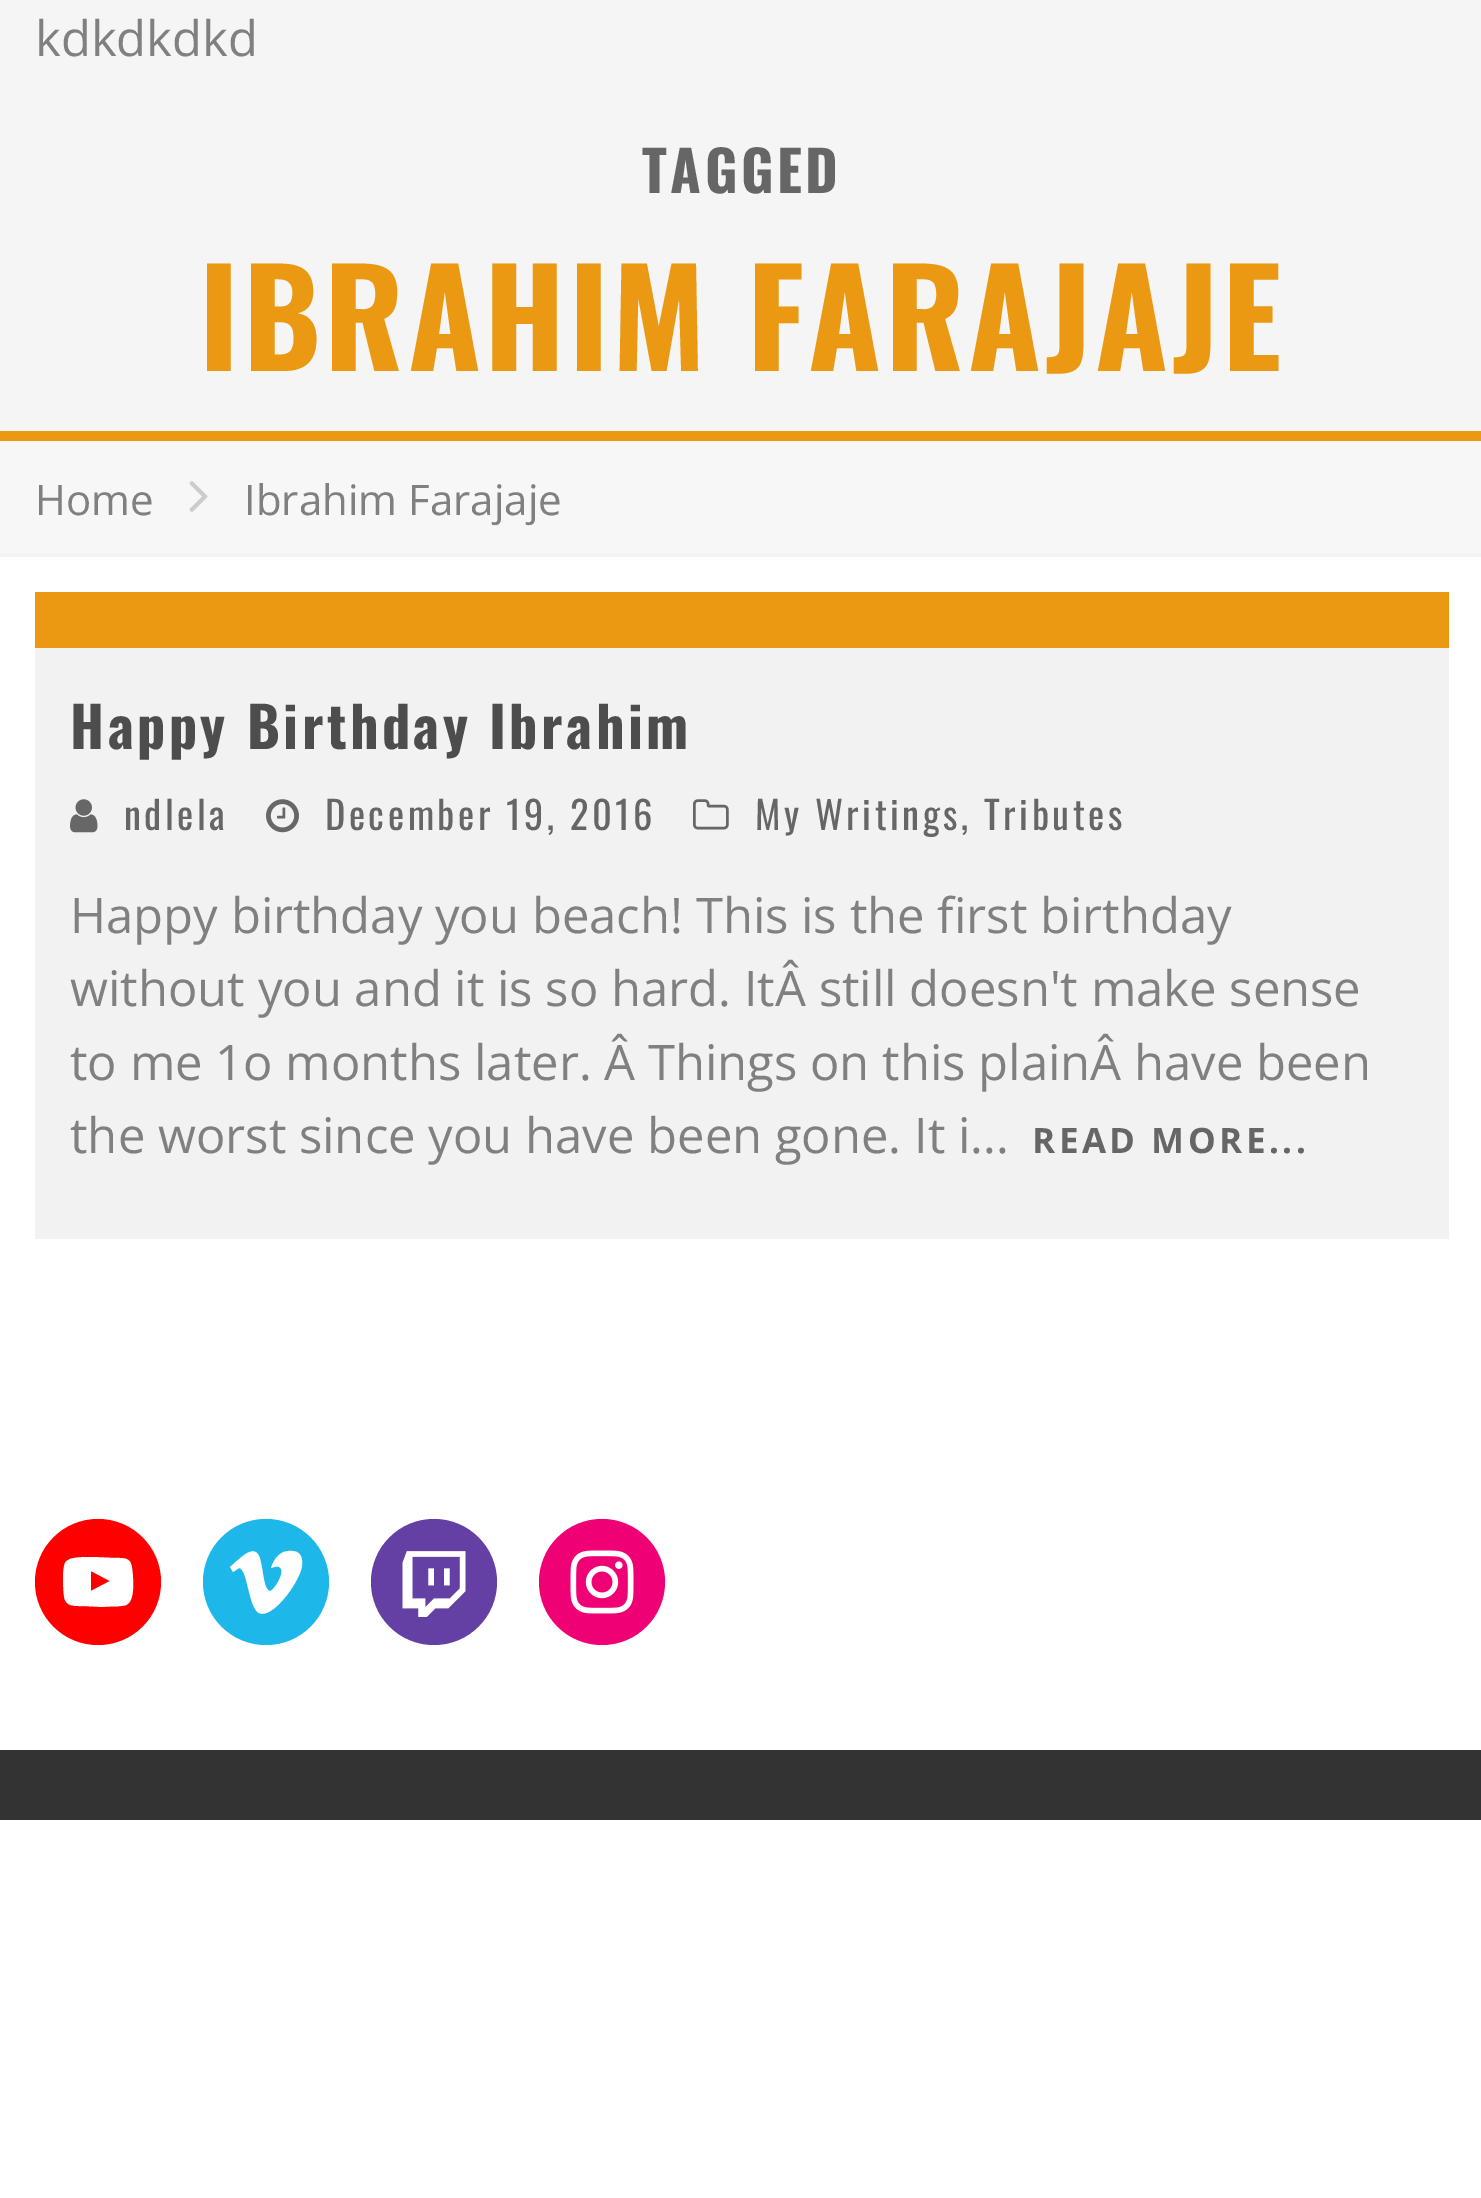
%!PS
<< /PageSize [1481 2198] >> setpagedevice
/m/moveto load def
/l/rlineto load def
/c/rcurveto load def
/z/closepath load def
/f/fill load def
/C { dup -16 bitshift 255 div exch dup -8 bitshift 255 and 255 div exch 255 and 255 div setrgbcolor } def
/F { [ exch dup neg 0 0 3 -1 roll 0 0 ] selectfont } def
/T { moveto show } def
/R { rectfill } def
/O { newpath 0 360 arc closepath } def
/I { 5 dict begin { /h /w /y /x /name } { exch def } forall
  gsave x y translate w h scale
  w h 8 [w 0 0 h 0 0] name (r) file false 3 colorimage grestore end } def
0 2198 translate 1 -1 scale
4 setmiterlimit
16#FFFFFF C
0 0 1481 2198 R
16#F5F5F5 C
0 0 1481 431 R
/OpenSans-Regular 49 F
16#808080 C
(kdkdkdkd) 35 56 T
16#EB9812 C
0 431 1481 10 R
/Oswald-Bold 56 F
16#666666 C
642 193 m 3.5 0 (TAGGED) ashow
/Oswald-Bold 133 F
16#EB9812 C
199 371 m 3.5 0 (IBRAHIM FARAJAJE) ashow
16#F7F7F7 C
0 441 1481 112 R
16#F3F3F3 C
0 553 1481 4 R
/OpenSans-Regular 42 F
16#808080 C
(Home) 35 515 T
(1.rgb) 189 481 19 31 I
(Ibrahim Farajaje) 244 515 T
16#F2F2F2 C
35 648 1414 591 R
16#EB9812 C
35 592 1414 56 R
/Oswald-Bold 56 F
16#4D4D4D C
70 749 m 3.5 0 (Happy Birthday Ibrahim) ashow
(2.rgb) 70 799 28 34 I
/Oswald-Regular 38.5 F
16#666666 C
124 830 m 3.5 0 (ndlela) ashow
(3.rgb) 266 799 33 34 I
325 830 m 3.5 0 (December 19, 2016) ashow
(4.rgb) 693 799 36 31 I
755 830 m 3.5 0 (My Writings, Tributes) ashow
/OpenSans-Regular 49 F
16#808080 C
(Happy birthday you beach! This is the first birthday) 70 933 T
(without you and it is so hard. ItÂ still doesn't make sense) 70 1006 T
(to me 1o months later. Â Things on this plainÂ have been) 70 1080 T
(the worst since you have been gone. It i...) 70 1153 T
/OpenSans-Bold 35 F
16#666666 C
1032 1153 m 3.5 0 (READ MORE...) ashow
16#FF0000 C
98 1582 63 O f
16#FFFFFF C
132 1568 m -1 -11 -9 -10 -17 -10 c -22 -1 l -6 0 -18 0 -23 2 c -2 1 -4 2 -5 4 c -3 7 -2 25 -1 33 c 1 11 11 10 20 10 c 19 1 l 6 -1 18 0 23 -2 c 10 -4 7 -29 6 -37 c z 91 1591 m 0 -20 l 19 10 l z f
16#1EB7EA C
266 1582 63 O f
16#FFFFFF C
302 1565 m 0 13 -29 55 -43 48 c -11 -6 -11 -44 -20 -45 c -6 4 l -3 -5 l 9 -7 27 -29 31 -4 c 2 8 2 16 5 24 c 1 1 2 4 4 4 c 4 0 17 -21 9 -24 c -2 -1 -5 0 -8 1 c 4 -12 11 -18 21 -17 c 7 0 11 5 10 14 c z f
16#6440A4 C
434 1582 63 O f
(5.rgb) 402 1551 64 66 I
16#F00075 C
602 1582 63 O f
(6.rgb) 570 1550 64 64 I
16#333333 C
0 1750 1481 70 R
showpage
